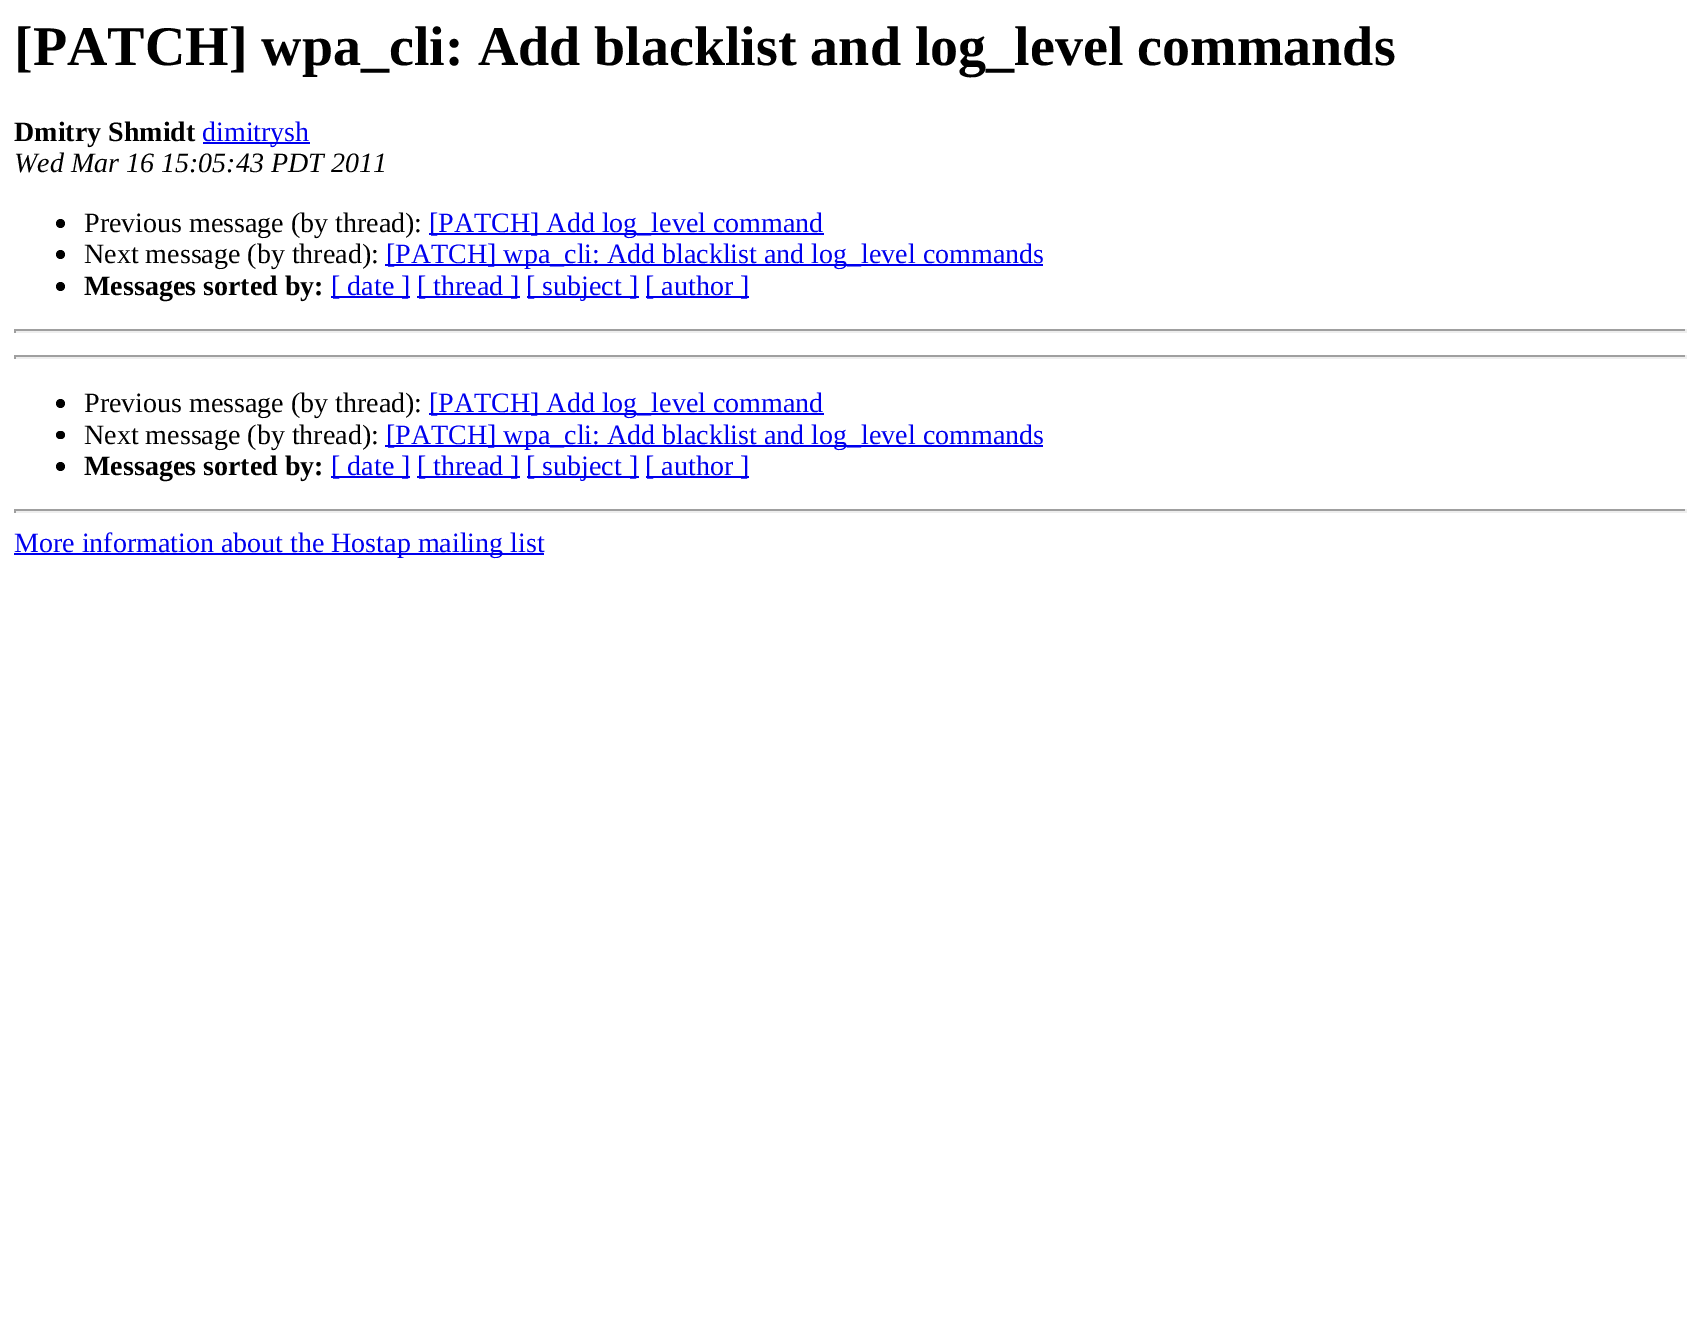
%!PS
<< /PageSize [1700 1331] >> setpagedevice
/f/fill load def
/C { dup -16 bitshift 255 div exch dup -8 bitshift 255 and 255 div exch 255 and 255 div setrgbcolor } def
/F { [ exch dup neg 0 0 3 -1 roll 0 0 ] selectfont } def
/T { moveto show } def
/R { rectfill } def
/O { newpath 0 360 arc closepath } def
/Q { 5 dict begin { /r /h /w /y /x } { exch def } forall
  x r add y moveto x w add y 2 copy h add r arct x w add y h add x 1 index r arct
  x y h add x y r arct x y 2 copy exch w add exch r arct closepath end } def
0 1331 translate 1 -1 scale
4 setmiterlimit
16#FFFFFF C
0 0 1700 1331 R
/LiberationSerif-Bold 56 F
16#000000 C
([PATCH] wpa_cli: Add blacklist and log_level commands) 14 65 T
/LiberationSerif-Bold 28 F
(Dmitry Shmidt) 14 141 T
16#0000EE C
203 142 107 2 R
/LiberationSerif-Regular 28 F
(dimitrysh) 202 141 T
/LiberationSerif-Italic 28 F
16#000000 C
(Wed Mar 16 15:05:43 PDT 2011) 14 172 T
60.5 223.5 4.5 O f
/LiberationSerif-Regular 28 F
(Previous message \(by thread\):) 84 232 T
16#0000EE C
429 233 395 2 R
([PATCH] Add log_level command) 429 232 T
16#000000 C
60.5 254.5 4.5 O f
(Next message \(by thread\):) 84 263 T
16#0000EE C
385 264 658 2 R
([PATCH] wpa_cli: Add blacklist and log_level commands) 386 263 T
16#000000 C
60.5 286.5 4.5 O f
/LiberationSerif-Bold 28 F
(Messages sorted by:) 84 295 T
16#0000EE C
331 296 79 2 R
/LiberationSerif-Regular 28 F
([ date ]) 331 295 T
417 296 103 2 R
([ thread ]) 417 295 T
527 296 112 2 R
([ subject ]) 526 295 T
646 296 103 2 R
([ author ]) 645 295 T
16#9F9F9F C
14 329 1673 2 R
16#EEEEEE C
1685 329 2 4 R
14 331 1673 2 R
16#9F9F9F C
14 329 2 4 R
14 355 1673 2 R
16#EEEEEE C
1685 355 2 4 R
14 357 1673 2 R
16#9F9F9F C
14 355 2 4 R
16#000000 C
60.5 403.5 4.5 O f
(Previous message \(by thread\):) 84 412 T
16#0000EE C
429 413 395 2 R
([PATCH] Add log_level command) 429 412 T
16#000000 C
56 431 9 8 4 Q f
(Next message \(by thread\):) 84 444 T
16#0000EE C
385 445 658 2 R
([PATCH] wpa_cli: Add blacklist and log_level commands) 386 444 T
16#000000 C
60.5 466.5 4.5 O f
/LiberationSerif-Bold 28 F
(Messages sorted by:) 84 475 T
16#0000EE C
331 476 79 2 R
/LiberationSerif-Regular 28 F
([ date ]) 331 475 T
417 476 103 2 R
([ thread ]) 417 475 T
527 476 112 2 R
([ subject ]) 526 475 T
646 476 103 2 R
([ author ]) 645 475 T
16#9F9F9F C
14 509 1673 2 R
16#EEEEEE C
1685 509 2 4 R
14 511 1673 2 R
16#9F9F9F C
14 509 2 4 R
16#0000EE C
14 553 530 2 R
(More information about the Hostap mailing list) 14 552 T
showpage
